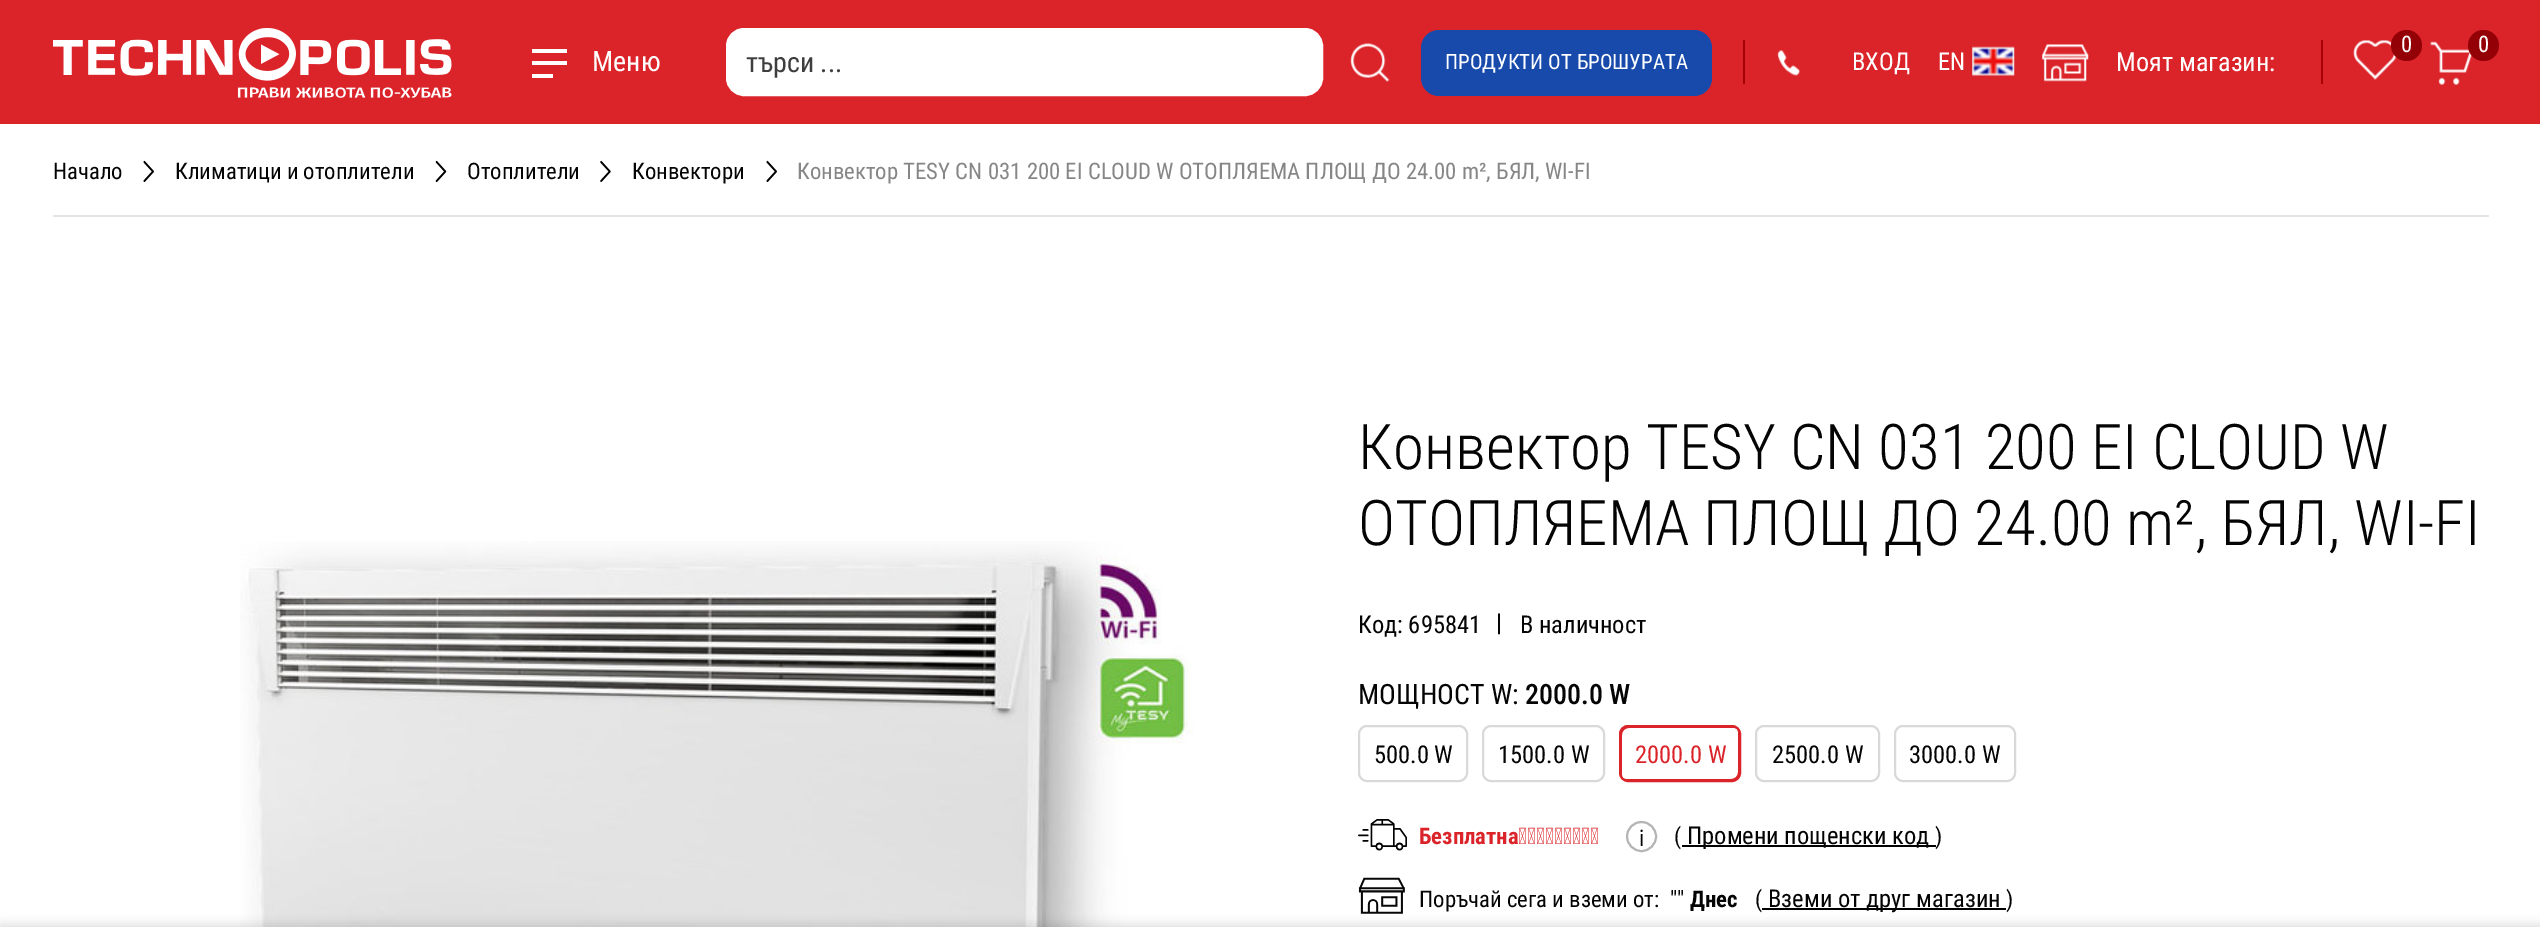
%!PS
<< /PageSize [2540 927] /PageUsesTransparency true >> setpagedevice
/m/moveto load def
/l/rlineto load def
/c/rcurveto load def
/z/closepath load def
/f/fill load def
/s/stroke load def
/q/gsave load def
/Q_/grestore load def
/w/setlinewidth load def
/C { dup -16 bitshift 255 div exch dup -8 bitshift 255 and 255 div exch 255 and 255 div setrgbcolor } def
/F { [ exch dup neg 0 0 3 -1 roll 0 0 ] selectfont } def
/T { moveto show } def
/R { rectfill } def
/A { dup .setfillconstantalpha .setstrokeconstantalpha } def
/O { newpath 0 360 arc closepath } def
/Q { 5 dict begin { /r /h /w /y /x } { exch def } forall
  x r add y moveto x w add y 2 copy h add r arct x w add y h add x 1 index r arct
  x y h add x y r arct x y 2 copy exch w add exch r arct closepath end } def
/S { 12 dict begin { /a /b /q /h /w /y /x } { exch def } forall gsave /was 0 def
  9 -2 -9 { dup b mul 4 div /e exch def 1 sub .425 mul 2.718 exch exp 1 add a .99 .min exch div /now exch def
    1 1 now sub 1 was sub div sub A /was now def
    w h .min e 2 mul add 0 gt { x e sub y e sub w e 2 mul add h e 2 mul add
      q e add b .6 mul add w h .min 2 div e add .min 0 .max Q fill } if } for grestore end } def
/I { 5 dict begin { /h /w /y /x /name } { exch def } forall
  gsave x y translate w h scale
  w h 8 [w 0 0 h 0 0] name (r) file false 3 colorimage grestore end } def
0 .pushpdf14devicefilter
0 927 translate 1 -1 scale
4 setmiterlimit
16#FFFFFF C
0 0 2540 927 R
16#DB232A C
0 0 2540 124 R
(1.rgb) 53 28 399 70 I
16#FFFFFF C
532 49 35 4 R
532 61 35 4 R
532 74 21 4 R
/RobotoCondensed-Regular 28 F
(Меню) 592 71 T
727 29 595 66 17 Q q f Q_
2 w
s
16#3E3E3E C
(търси ...) 746 72 T
(2.rgb) 1350 43 40 39 I
16#A70006 C
2321 40 2 44 R
(3.rgb) 2353 40 44 40 I
16#930006 C
2406.5 45.5 15.5 O f
/RobotoCondensed-Regular 22.75 F
16#FFFFFF C
(0) 2401 52 T
(4.rgb) 2430 41 43 44 I
16#930006 C
2483.5 45.5 15.5 O f
16#FFFFFF C
(0) 2478 52 T
16#174AAB C
1421 30 291 66 18 Q f
/RobotoCondensed-Regular 21 F
16#FFFFFF C
(ПРОДУКТИ ОТ БРОШУРАТА) 1445 69 T
16#A70006 C
1743 40 2 44 R
(5.rgb) 1777 50 23 26 I
/RobotoCondensed-Regular 24.5 F
16#FFFFFF C
(ВХОД) 1852 70 T
(EN) 1938 70 T
(6.rgb) 1972 46 43 30 I
(7.rgb) 2042 44 47 38 I
/RobotoCondensed-Regular 26.25 F
(Моят магазин:) 2116 71 T
16#E4E4E4 C
53 215 2436 2 R
/RobotoCondensed-Regular 22.75 F
16#040404 C
(Начало) 53 179 T
(8.rgb) 143 160 11 22 I
(Климатици и отоплители) 175 179 T
(9.rgb) 435 160 12 22 I
(Отоплители) 467 179 T
(10.rgb) 600 160 11 22 I
(Конвектори) 632 179 T
(8.rgb) 766 160 11 22 I
16#868686 C
(Конвектор TESY CN 031 200 EI CLOUD W ОТОПЛЯЕМА ПЛОЩ ДО 24.00 m², БЯЛ, WI-FI) 797 179 T
(11.rgb) 240 541 953 386 I
/RobotoCondensed-Light 63 F
16#040404 C
(Конвектор TESY CN 031 200 EI CLOUD W) 1358 469 T
(ОТОПЛЯЕМА ПЛОЩ ДО 24.00 m², БЯЛ, WI-FI) 1358 545 T
/RobotoCondensed-Regular 24.5 F
(Код: 695841) 1358 633 T
(|) 1496 631 T
(В наличност) 1520 633 T
/RobotoCondensed-Regular 28 F
(МОЩНОСТ W:) 1358 704 T
/RobotoCondensed-Medium 28 F
(2000.0 W) 1525 704 T
16#D9D9D9 C
1359 726 108 55 8 Q s
/RobotoCondensed-Regular 24.5 F
16#040404 C
(500.0 W) 1374 763 T
16#D9D9D9 C
1483 726 121 55 8 Q s
16#040404 C
(1500.0 W) 1498 763 T
16#DB232A C
1622 778 m 1 2 4 3 6 3 c 105 0 l 4 0 7 -3 7 -7 c 0 -41 l 0 -3 -2 -5 -4 -6 c 1 1 2 3 2 5 c 0 40 l 0 4 -3 7 -7 7 c -105 0 l -1 0 -3 0 -4 -1 c z f
1629 728 m 105 0 l 2 0 4 1 6 3 c -1 -3 -4 -5 -7 -5 c -105 0 l -4 0 -7 3 -7 7 c 0 41 l 0 2 1 4 2 5 c -1 -1 -1 -2 -1 -4 c 0 -40 l 0 -4 3 -7 7 -7 c z f
1620 726 120 55 8 Q s
(2000.0 W) 1635 763 T
16#D9D9D9 C
1756 726 123 55 8 Q s
16#040404 C
(2500.0 W) 1772 763 T
16#D9D9D9 C
1895 726 120 55 8 Q s
16#040404 C
(3000.0 W) 1909 763 T
(12.rgb) 1358 819 49 32 I
/RobotoCondensed-Bold 22.75 F
16#DB232A C
(Безплатна доставка) 1419 844 T
16#B5B5B5 C
1641.5 836.5 14.5 O s
/RobotoCondensed-Regular 22.75 F
16#040404 C
(i) 1639 846 T
(\() 1674 844 T
16#000000 C
1682 845 254 2 R
/RobotoCondensed-Regular 24.5 F
16#040404 C
(Промени пощенски код) 1687 844 T
/RobotoCondensed-Regular 22.75 F
(\)) 1935 844 T
(13.rgb) 1358 877 47 37 I
(Поръчай сега и вземи от:) 1419 907 T
("") 1670 907 T
/RobotoCondensed-Bold 22.75 F
(Днес) 1690 907 T
/RobotoCondensed-Regular 22.75 F
(\() 1755 907 T
16#000000 C
1762 908 244 2 R
/RobotoCondensed-Regular 24.5 F
16#040404 C
(Вземи от друг магазин) 1768 907 T
/RobotoCondensed-Regular 22.75 F
(\)) 2006 907 T
16#000000 C
0 924 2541 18 0 5 .12 S
.poppdf14devicefilter showpage
